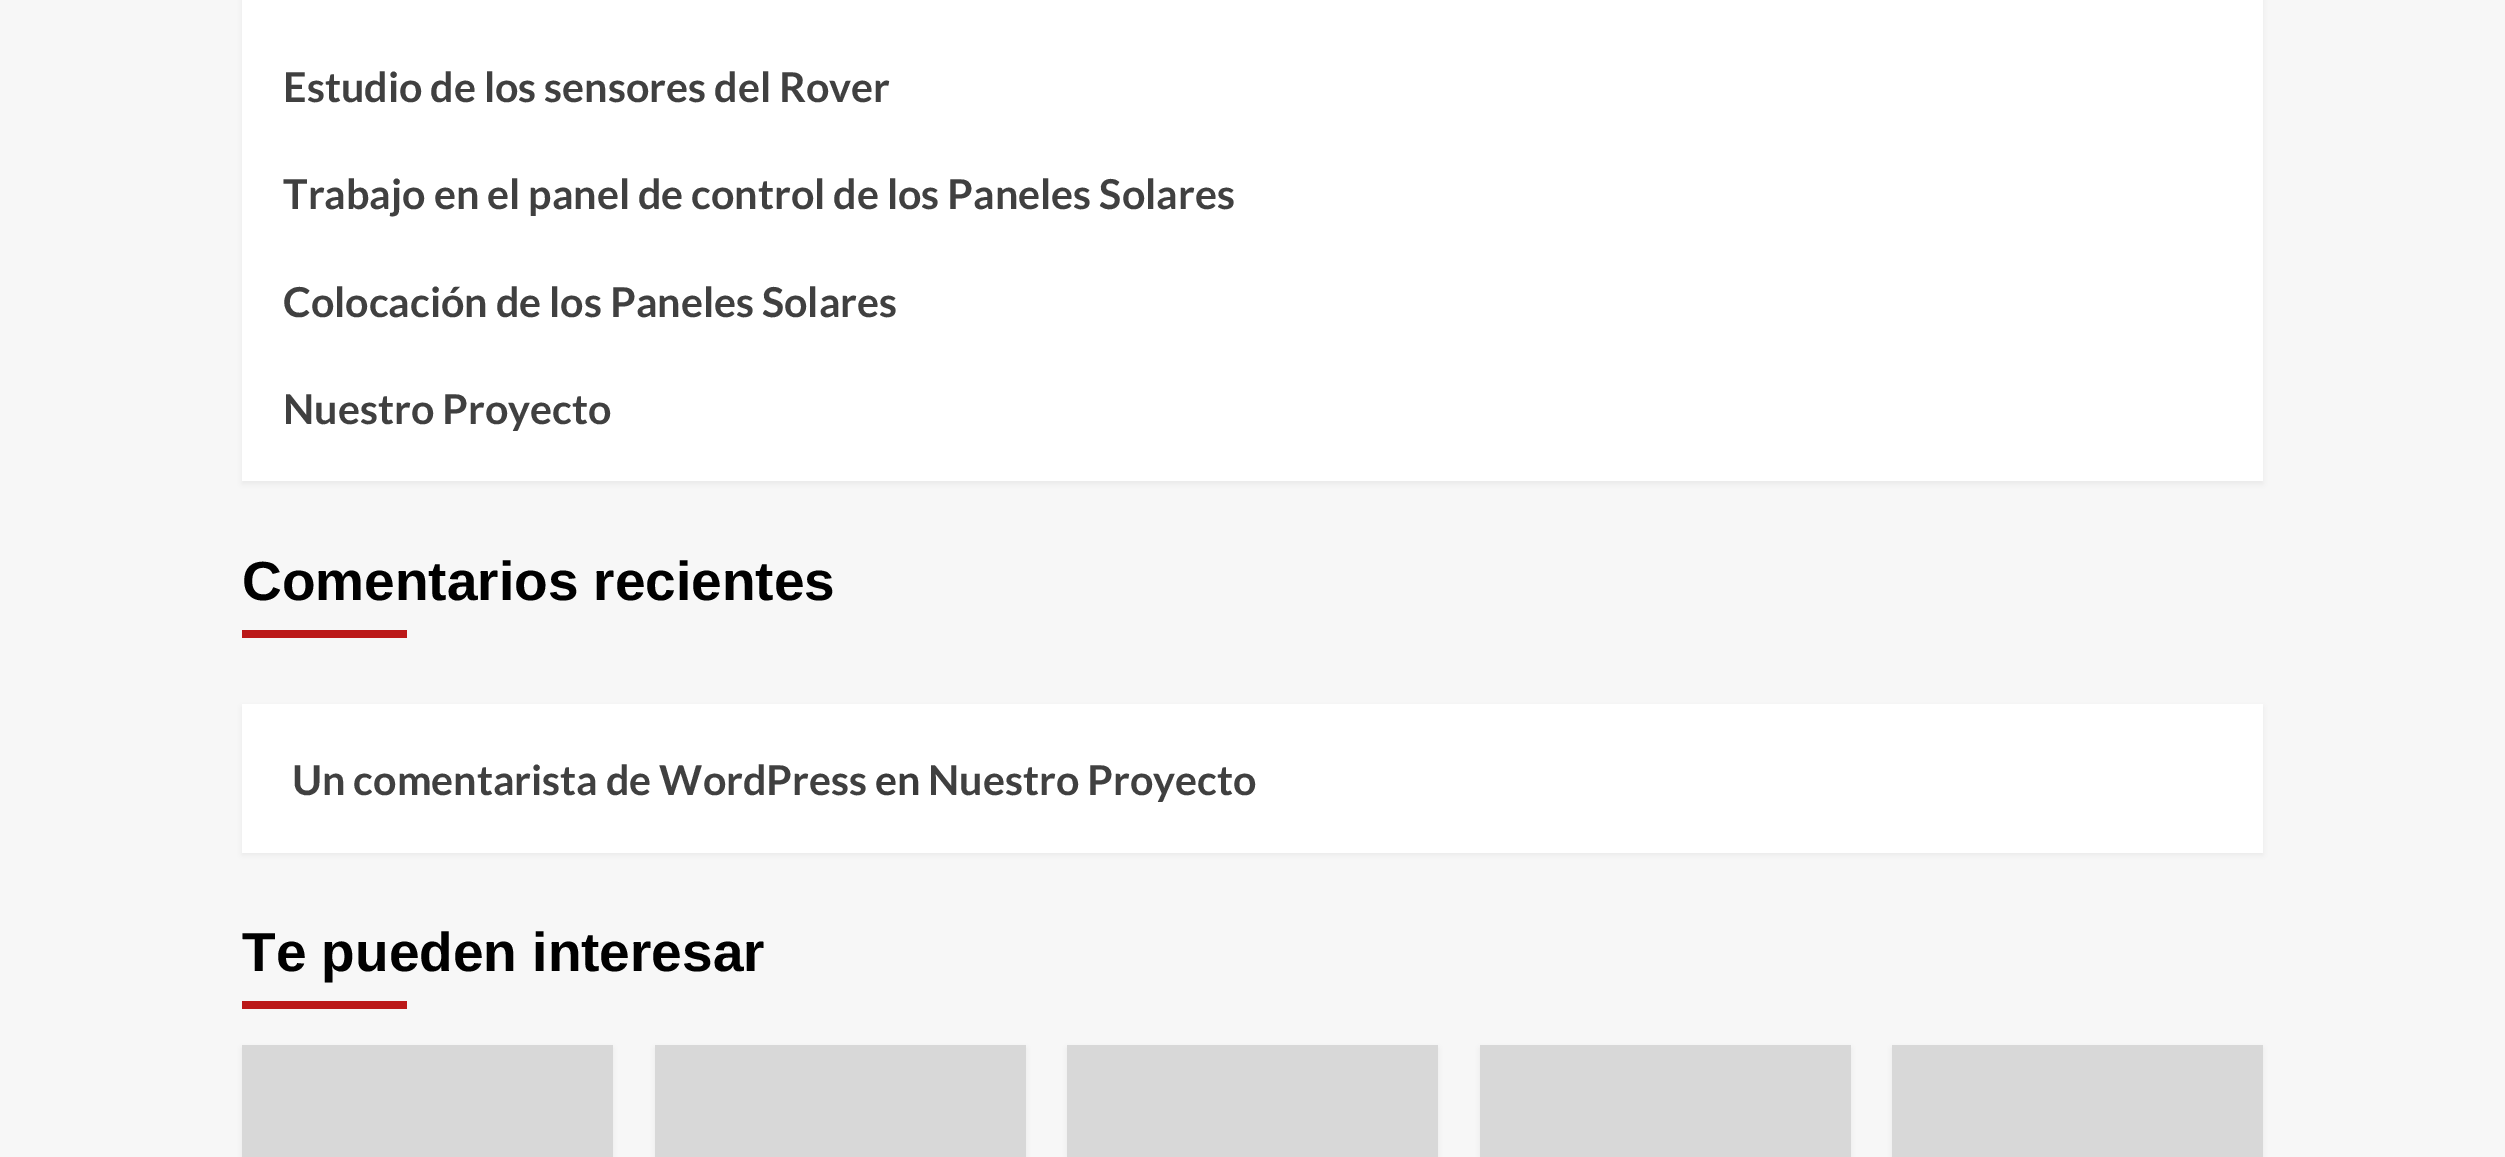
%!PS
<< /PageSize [2505 1157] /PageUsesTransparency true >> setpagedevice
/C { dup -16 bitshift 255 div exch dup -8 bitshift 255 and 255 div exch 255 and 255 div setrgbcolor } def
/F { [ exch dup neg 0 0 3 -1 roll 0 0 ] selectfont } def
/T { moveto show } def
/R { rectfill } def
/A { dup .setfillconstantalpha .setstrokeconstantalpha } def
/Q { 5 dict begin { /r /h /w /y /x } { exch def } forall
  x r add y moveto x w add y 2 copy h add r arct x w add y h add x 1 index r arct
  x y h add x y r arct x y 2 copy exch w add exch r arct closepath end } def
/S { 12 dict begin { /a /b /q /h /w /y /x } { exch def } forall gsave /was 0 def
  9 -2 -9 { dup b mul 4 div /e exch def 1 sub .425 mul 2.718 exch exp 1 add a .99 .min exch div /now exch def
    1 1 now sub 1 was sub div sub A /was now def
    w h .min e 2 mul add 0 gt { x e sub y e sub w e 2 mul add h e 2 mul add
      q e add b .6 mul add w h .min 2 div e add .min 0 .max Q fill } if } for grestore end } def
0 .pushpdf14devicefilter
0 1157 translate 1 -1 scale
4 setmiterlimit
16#F7F7F7 C
0 0 2505 1157 R
16#000000 C
242 -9 2021 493 0 3 .05 S
16#FFFFFF C
242 0 2021 481 R
/Lato-Bold 41.25 F
16#404040 C
(Estudio de los sensores del Rover) 283 102 T
(Trabajo en el panel de control de los Paneles Solares) 283 209 T
(Colocación de los Paneles Solares) 283 317 T
(Nuestro Proyecto) 283 424 T
/LiberationSans-Bold 55 F
16#000000 C
(Comentarios recientes) 242 600 T
16#BB1919 C
242 630 165 8 R
16#000000 C
242 707 2021 148 0 3 .05 S
16#FFFFFF C
242 704 2021 149 R
/Lato-Bold 41.25 F
16#404040 C
(Un comentarista de WordPress) 292 795 T
16#3A3A3A C
(en) 875 795 T
16#404040 C
(Nuestro Proyecto) 928 795 T
/LiberationSans-Bold 55 F
16#000000 C
(Te pueden interesar) 242 971 T
16#BB1919 C
242 1001 165 8 R
16#000000 C
242 1048 371 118 0 3 .05 S
16#D8D8D8 C
242 1045 371 112 R
16#000000 C
655 1048 371 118 0 3 .05 S
16#D8D8D8 C
655 1045 371 112 R
16#000000 C
1067 1048 371 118 0 3 .05 S
16#D8D8D8 C
1067 1045 371 112 R
16#000000 C
1480 1048 371 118 0 3 .05 S
16#D8D8D8 C
1480 1045 371 112 R
16#000000 C
1892 1048 371 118 0 3 .05 S
16#D8D8D8 C
1892 1045 371 112 R
.poppdf14devicefilter showpage
